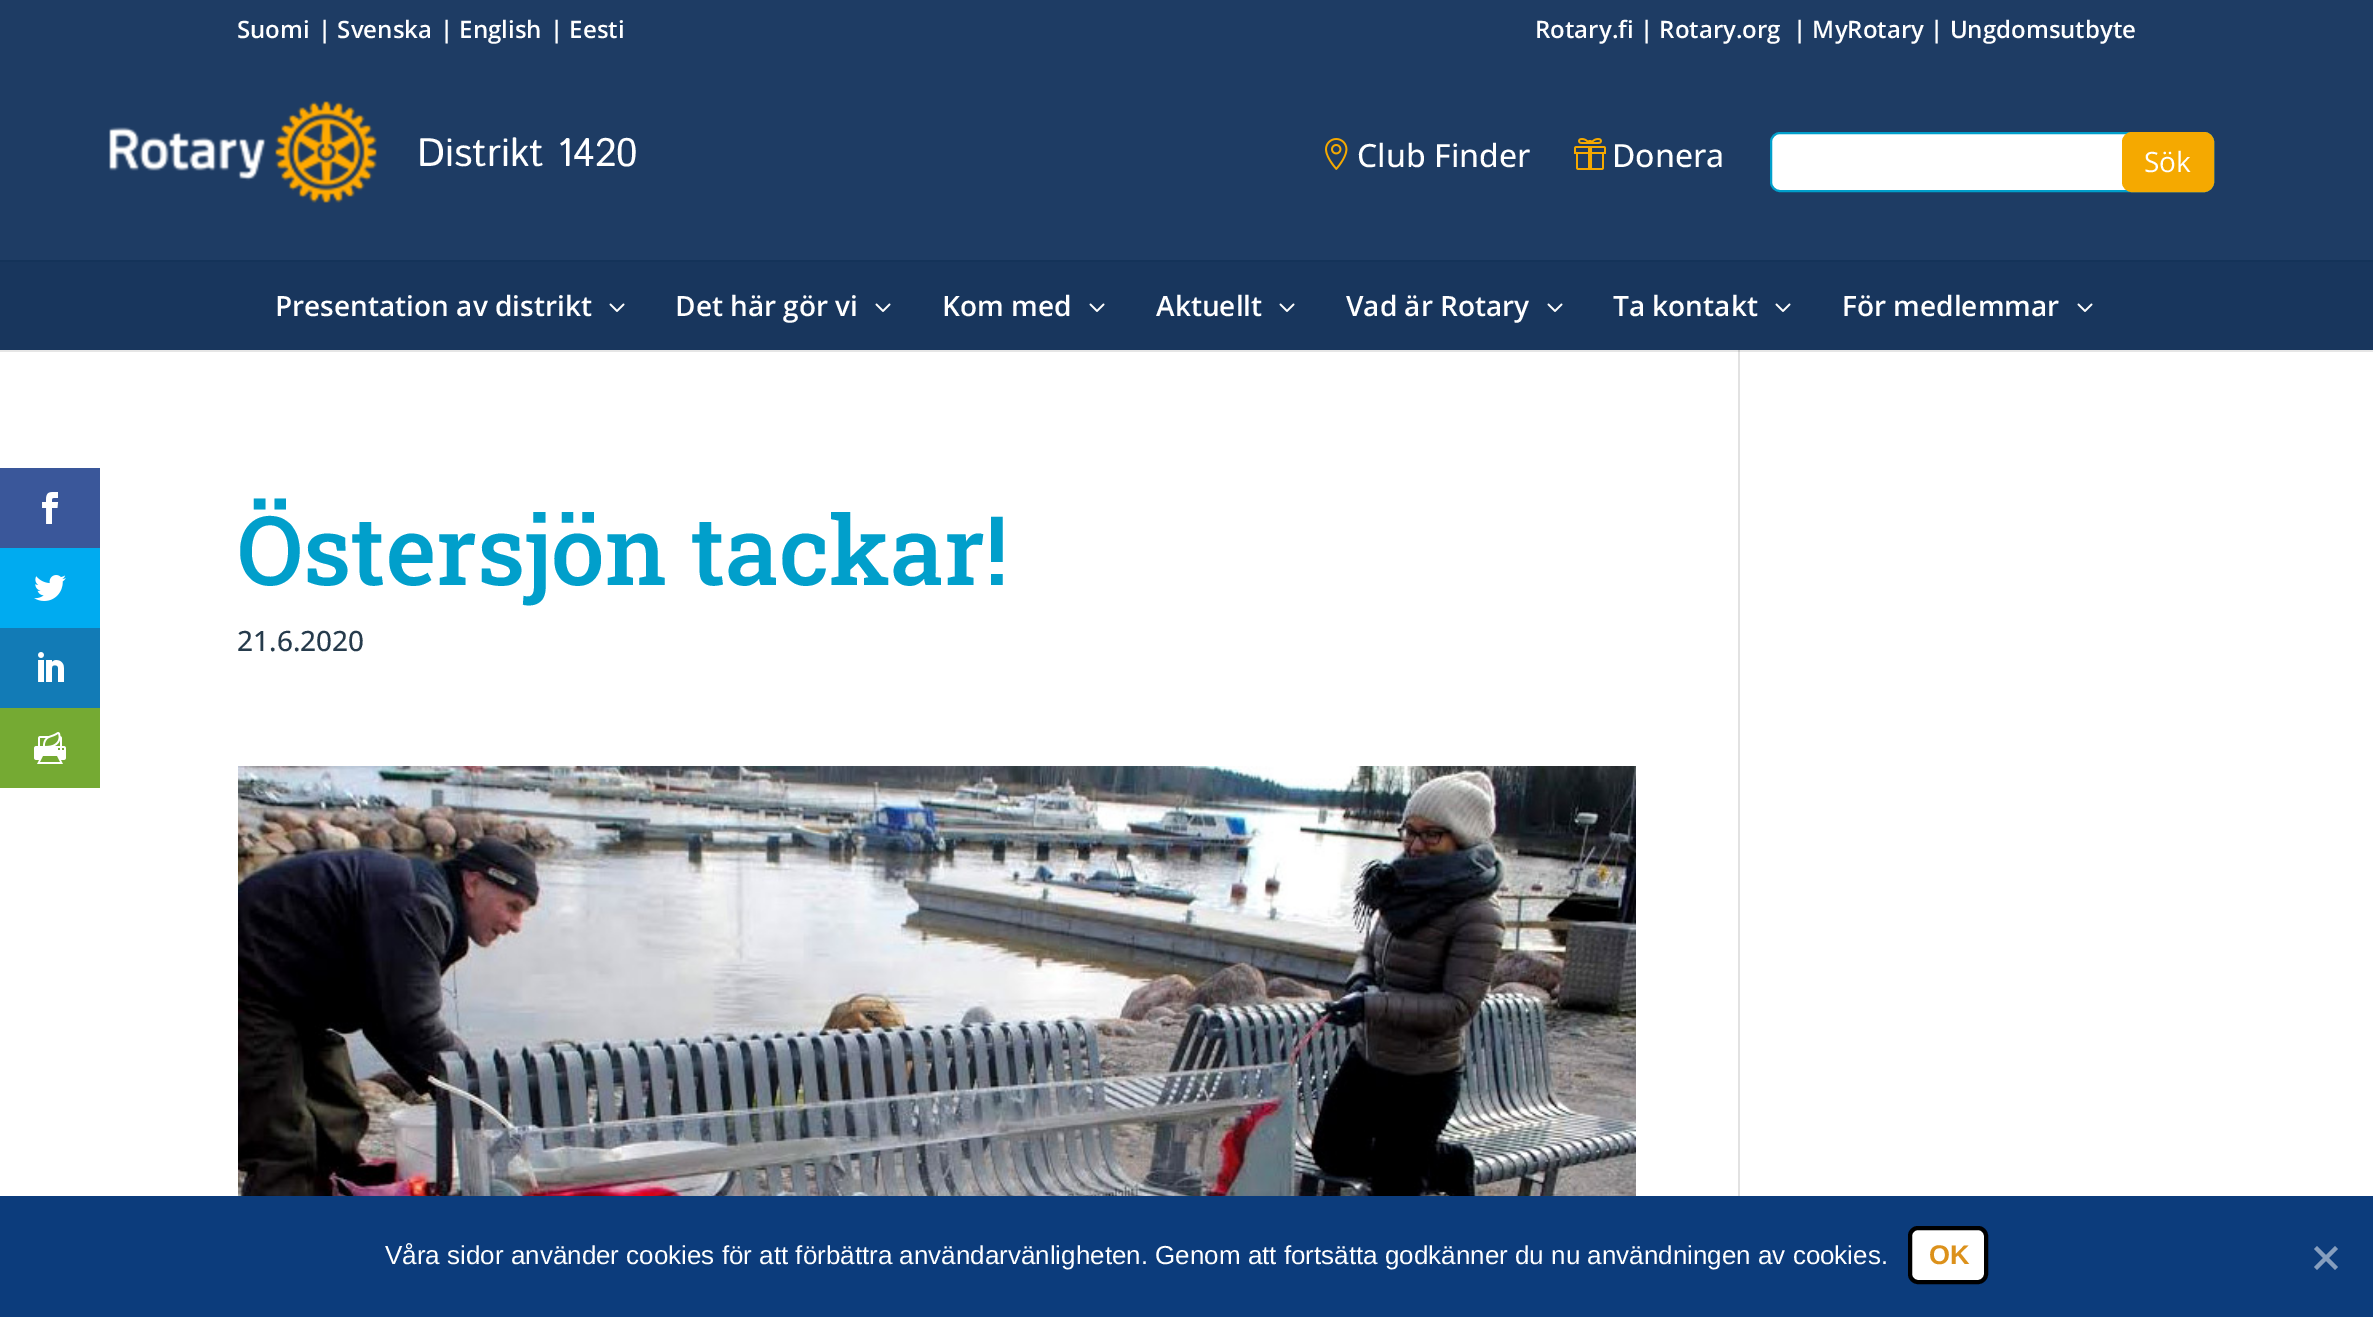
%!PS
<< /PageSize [2373 1317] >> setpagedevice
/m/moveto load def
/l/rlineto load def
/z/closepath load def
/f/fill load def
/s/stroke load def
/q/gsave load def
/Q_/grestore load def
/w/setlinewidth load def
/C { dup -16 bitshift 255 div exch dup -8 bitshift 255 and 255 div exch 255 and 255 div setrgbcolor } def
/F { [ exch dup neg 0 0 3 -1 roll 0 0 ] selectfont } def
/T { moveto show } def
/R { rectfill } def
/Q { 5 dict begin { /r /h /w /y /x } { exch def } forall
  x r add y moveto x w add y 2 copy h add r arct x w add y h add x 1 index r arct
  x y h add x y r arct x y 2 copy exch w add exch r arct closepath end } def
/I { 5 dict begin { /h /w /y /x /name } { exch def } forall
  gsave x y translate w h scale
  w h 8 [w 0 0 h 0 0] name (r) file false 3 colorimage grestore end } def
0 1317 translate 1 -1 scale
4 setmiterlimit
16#FFFFFF C
0 0 2373 1317 R
16#E6E6E6 C
0 350 2373 2 R
16#3A579A C
0 468 100 80 R
(1.rgb) 42 492 17 32 I
16#00ABF0 C
0 548 100 80 R
(2.rgb) 34 575 32 26 I
16#127BB6 C
0 628 100 80 R
(3.rgb) 38 652 26 30 I
16#75AA33 C
0 708 100 80 R
(4.rgb) 34 732 32 32 I
16#1E3C64 C
0 0 2373 260 R
/OpenSans-SemiBold 24 F
16#FFFFFF C
(Suomi) 237 38 T
(| Svenska) 318 38 T
(| English) 440 38 T
(| Eesti) 550 38 T
(Rotary.fi | Rotary.org) 1535 38 T
(| MyRotary | Ungdomsutbyte) 1793 38 T
(5.rgb) 109 101 268 102 I
/IstokWeb-Regular 39.75 F
(Distrikt 1420) 417 166 T
(6.rgb) 1325 138 23 32 I
/OpenSans-Medium 32 F
(Club Finder) 1357 167 T
(7.rgb) 1574 138 32 32 I
(Donera) 1612 167 T
1771 133 442 58 9 Q q f Q_
16#019FCB C
2 w
s
16#F5A900 C
2123 133 90 58 9 Q q f Q_
s
/OpenSans-Regular 28 F
16#FFFFFF C
(Sök) 2144 172 T
16#18365D C
0 262 2373 88 R
16#143359 C
0 260 2373 2 R
/OpenSans-SemiBold 28 F
16#FFFFFF C
(Presentation av distrikt) 275 316 T
(8.rgb) 609 303 16 9 I
(Det här gör vi) 675 316 T
(8.rgb) 875 303 16 9 I
(Kom med) 942 316 T
(8.rgb) 1089 303 16 9 I
(Aktuellt) 1156 316 T
(8.rgb) 1279 303 16 9 I
(Vad är Rotary) 1346 316 T
(8.rgb) 1547 303 16 9 I
(Ta kontakt) 1613 316 T
(8.rgb) 1775 303 16 9 I
(För medlemmar) 1842 316 T
(8.rgb) 2077 303 16 9 I
/RobotoSlab-Medium 96 F
16#019FCB C
(Östersjön tackar!) 237 585 T
/OpenSans-Medium 28 F
16#263B4C C
(21.6.2020) 237 651 T
(9.rgb) 238 766 1398 430 I
16#E2E2E2 C
1738 350 2 846 R
16#CBCBCB C
1738 350 2 2 R
16#0C3C7C C
0 1196 2373 121 R
/LiberationSans-Regular 26 F
16#FFFFFF C
(Våra sidor använder cookies för att förbättra användarvänligheten. Genom att fortsätta godkänner du nu användningen av cookies.) 385 1264 T
1910 1228 76 54 8 Q q f Q_
16#000000 C
4 w
s
/LiberationSans-Bold 27 F
16#DC911B C
(OK) 1929 1264 T
16#869EBE C
2335 1246 m 3 3 l -21 21 l -3 -3 l z f
2314 1249 m 3 -3 l 21 21 l -3 3 l z f
showpage
